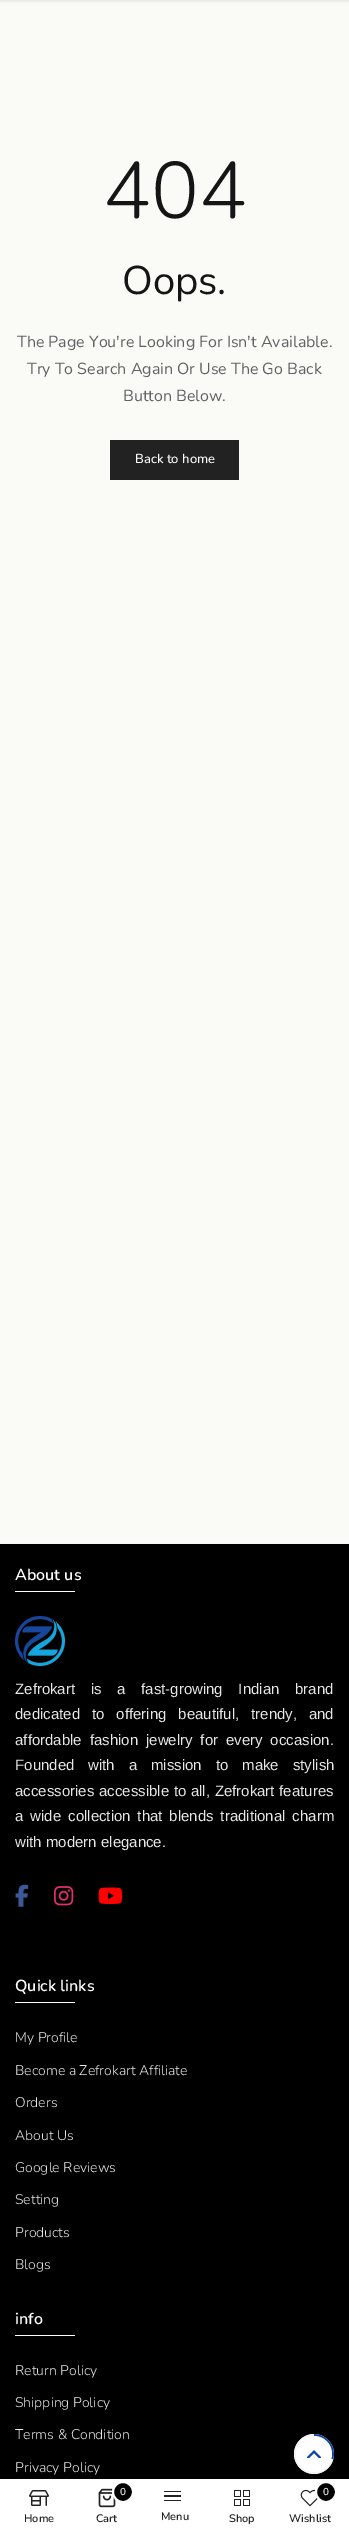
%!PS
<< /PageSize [349 2534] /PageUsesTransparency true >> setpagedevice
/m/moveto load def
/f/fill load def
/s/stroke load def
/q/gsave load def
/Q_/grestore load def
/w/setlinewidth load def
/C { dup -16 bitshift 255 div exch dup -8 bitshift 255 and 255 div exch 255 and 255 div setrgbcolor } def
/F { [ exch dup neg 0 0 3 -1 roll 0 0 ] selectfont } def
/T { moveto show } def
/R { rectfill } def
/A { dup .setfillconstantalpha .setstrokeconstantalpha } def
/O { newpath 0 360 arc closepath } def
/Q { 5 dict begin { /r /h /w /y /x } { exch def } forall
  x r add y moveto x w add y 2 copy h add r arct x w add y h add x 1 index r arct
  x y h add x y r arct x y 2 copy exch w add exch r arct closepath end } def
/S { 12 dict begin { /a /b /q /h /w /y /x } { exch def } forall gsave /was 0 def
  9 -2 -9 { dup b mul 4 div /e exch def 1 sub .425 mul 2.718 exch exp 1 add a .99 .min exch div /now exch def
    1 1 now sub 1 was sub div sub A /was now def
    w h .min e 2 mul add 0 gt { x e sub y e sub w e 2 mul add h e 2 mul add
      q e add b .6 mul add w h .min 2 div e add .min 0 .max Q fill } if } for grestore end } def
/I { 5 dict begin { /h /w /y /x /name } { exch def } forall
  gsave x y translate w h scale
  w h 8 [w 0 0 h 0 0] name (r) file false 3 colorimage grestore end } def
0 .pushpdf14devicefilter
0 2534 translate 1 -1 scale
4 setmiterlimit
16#FAFAF7 C
0 0 349 2534 R
16#000000 C
0 -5 349 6 0 1.5 .1 S
/Nunito-Light 80 F
16#151515 C
(404) 103 218 T
/Nunito-Regular 40 F
(Oops.) 122 294 T
/Nunito-Regular 16 F
16#626264 C
(The Page You're Looking For Isn't Available.) 17 347 T
(Try To Search Again Or Use The Go Back) 27 374 T
(Button Below.) 123 401 T
16#222222 C
110 440 129 40 R
/Nunito-Medium 13 F
16#FFFFFF C
(Back to home) 135 463 T
16#000000 C
0 1544 349 935 R
16#F7F7F7 C
0 1543 349 1 R
/Nunito-SemiBold 16 F
16#FFFFFF C
(About us) 15 1580 T
15 1591 60 1 R
(1.rgb) 15 1616 50 50 I
/LiberationSans-Regular 15 F
16#E7E7E7 C
15 1694 m 11.5 0 32 (Zefrokart is a fast-growing Indian brand) widthshow
15 1719 m 7.75 0 32 (dedicated to offering beautiful, trendy, and) widthshow
15 1745 m 3.75 0 32 (affordable fashion jewelry for every occasion.) widthshow
15 1770 m 9.75 0 32 (Founded with a mission to make stylish) widthshow
15 1796 m .5 0 32 (accessories accessible to all, Zefrokart features) widthshow
15 1821 m 2.75 0 32 (a wide collection that blends traditional charm) widthshow
(with modern elegance.) 15 1847 T
(2.rgb) 15 1884 14 23 I
(3.rgb) 54 1886 20 20 I
(4.rgb) 98 1887 25 17 I
/Nunito-SemiBold 16 F
16#FFFFFF C
(Quick links) 15 1991 T
15 2002 60 1 R
/Nunito-Light 14 F
16#E7E7E7 C
(My Profile) 15 2042 T
(Become a Zefrokart Affiliate) 15 2075 T
(Orders) 15 2107 T
(About Us) 15 2140 T
(Google Reviews) 15 2172 T
(Setting) 15 2204 T
(Products) 15 2237 T
(Blogs) 15 2269 T
/Nunito-SemiBold 16 F
16#FFFFFF C
(info) 15 2324 T
15 2335 60 1 R
/Nunito-Light 14 F
16#E7E7E7 C
(Return Policy) 15 2375 T
(Shipping Policy) 15 2407 T
(Terms & Condition) 15 2439 T
(Privacy Policy) 15 2472 T
16#000000 C
0 2479 349 55 0 4.5 .12 S
(5.rgb) 294 2434 40 40 I
16#FFFFFF C
314 2454 18 O f
(6.rgb) 307 2450 14 8 I
0 2479 349 55 R
(7.rgb) 29 2490 20 16 I
/Nunito-SemiBold 11 F
16#222222 C
(Home) 24 2522 T
(8.rgb) 98 2488 18 20 I
16#000000 C
123 2492 10 O q f Q_
16#FFFFFF C
2 w
s
/Nunito-Medium 10 F
(0) 120 2495 T
/Nunito-SemiBold 11 F
16#222222 C
(Cart) 96 2522 T
164 2491 17 1 R
164 2495 17 2 R
164 2500 17 1 R
(Menu) 161 2520 T
(9.rgb) 234 2490 16 16 I
(Shop) 229 2522 T
(10.rgb) 300 2489 18 18 I
16#000000 C
326 2492 10 O q f Q_
16#FFFFFF C
s
/Nunito-Medium 10 F
(0) 323 2495 T
/Nunito-SemiBold 11 F
16#222222 C
(Wishlist) 289 2522 T
.poppdf14devicefilter showpage
